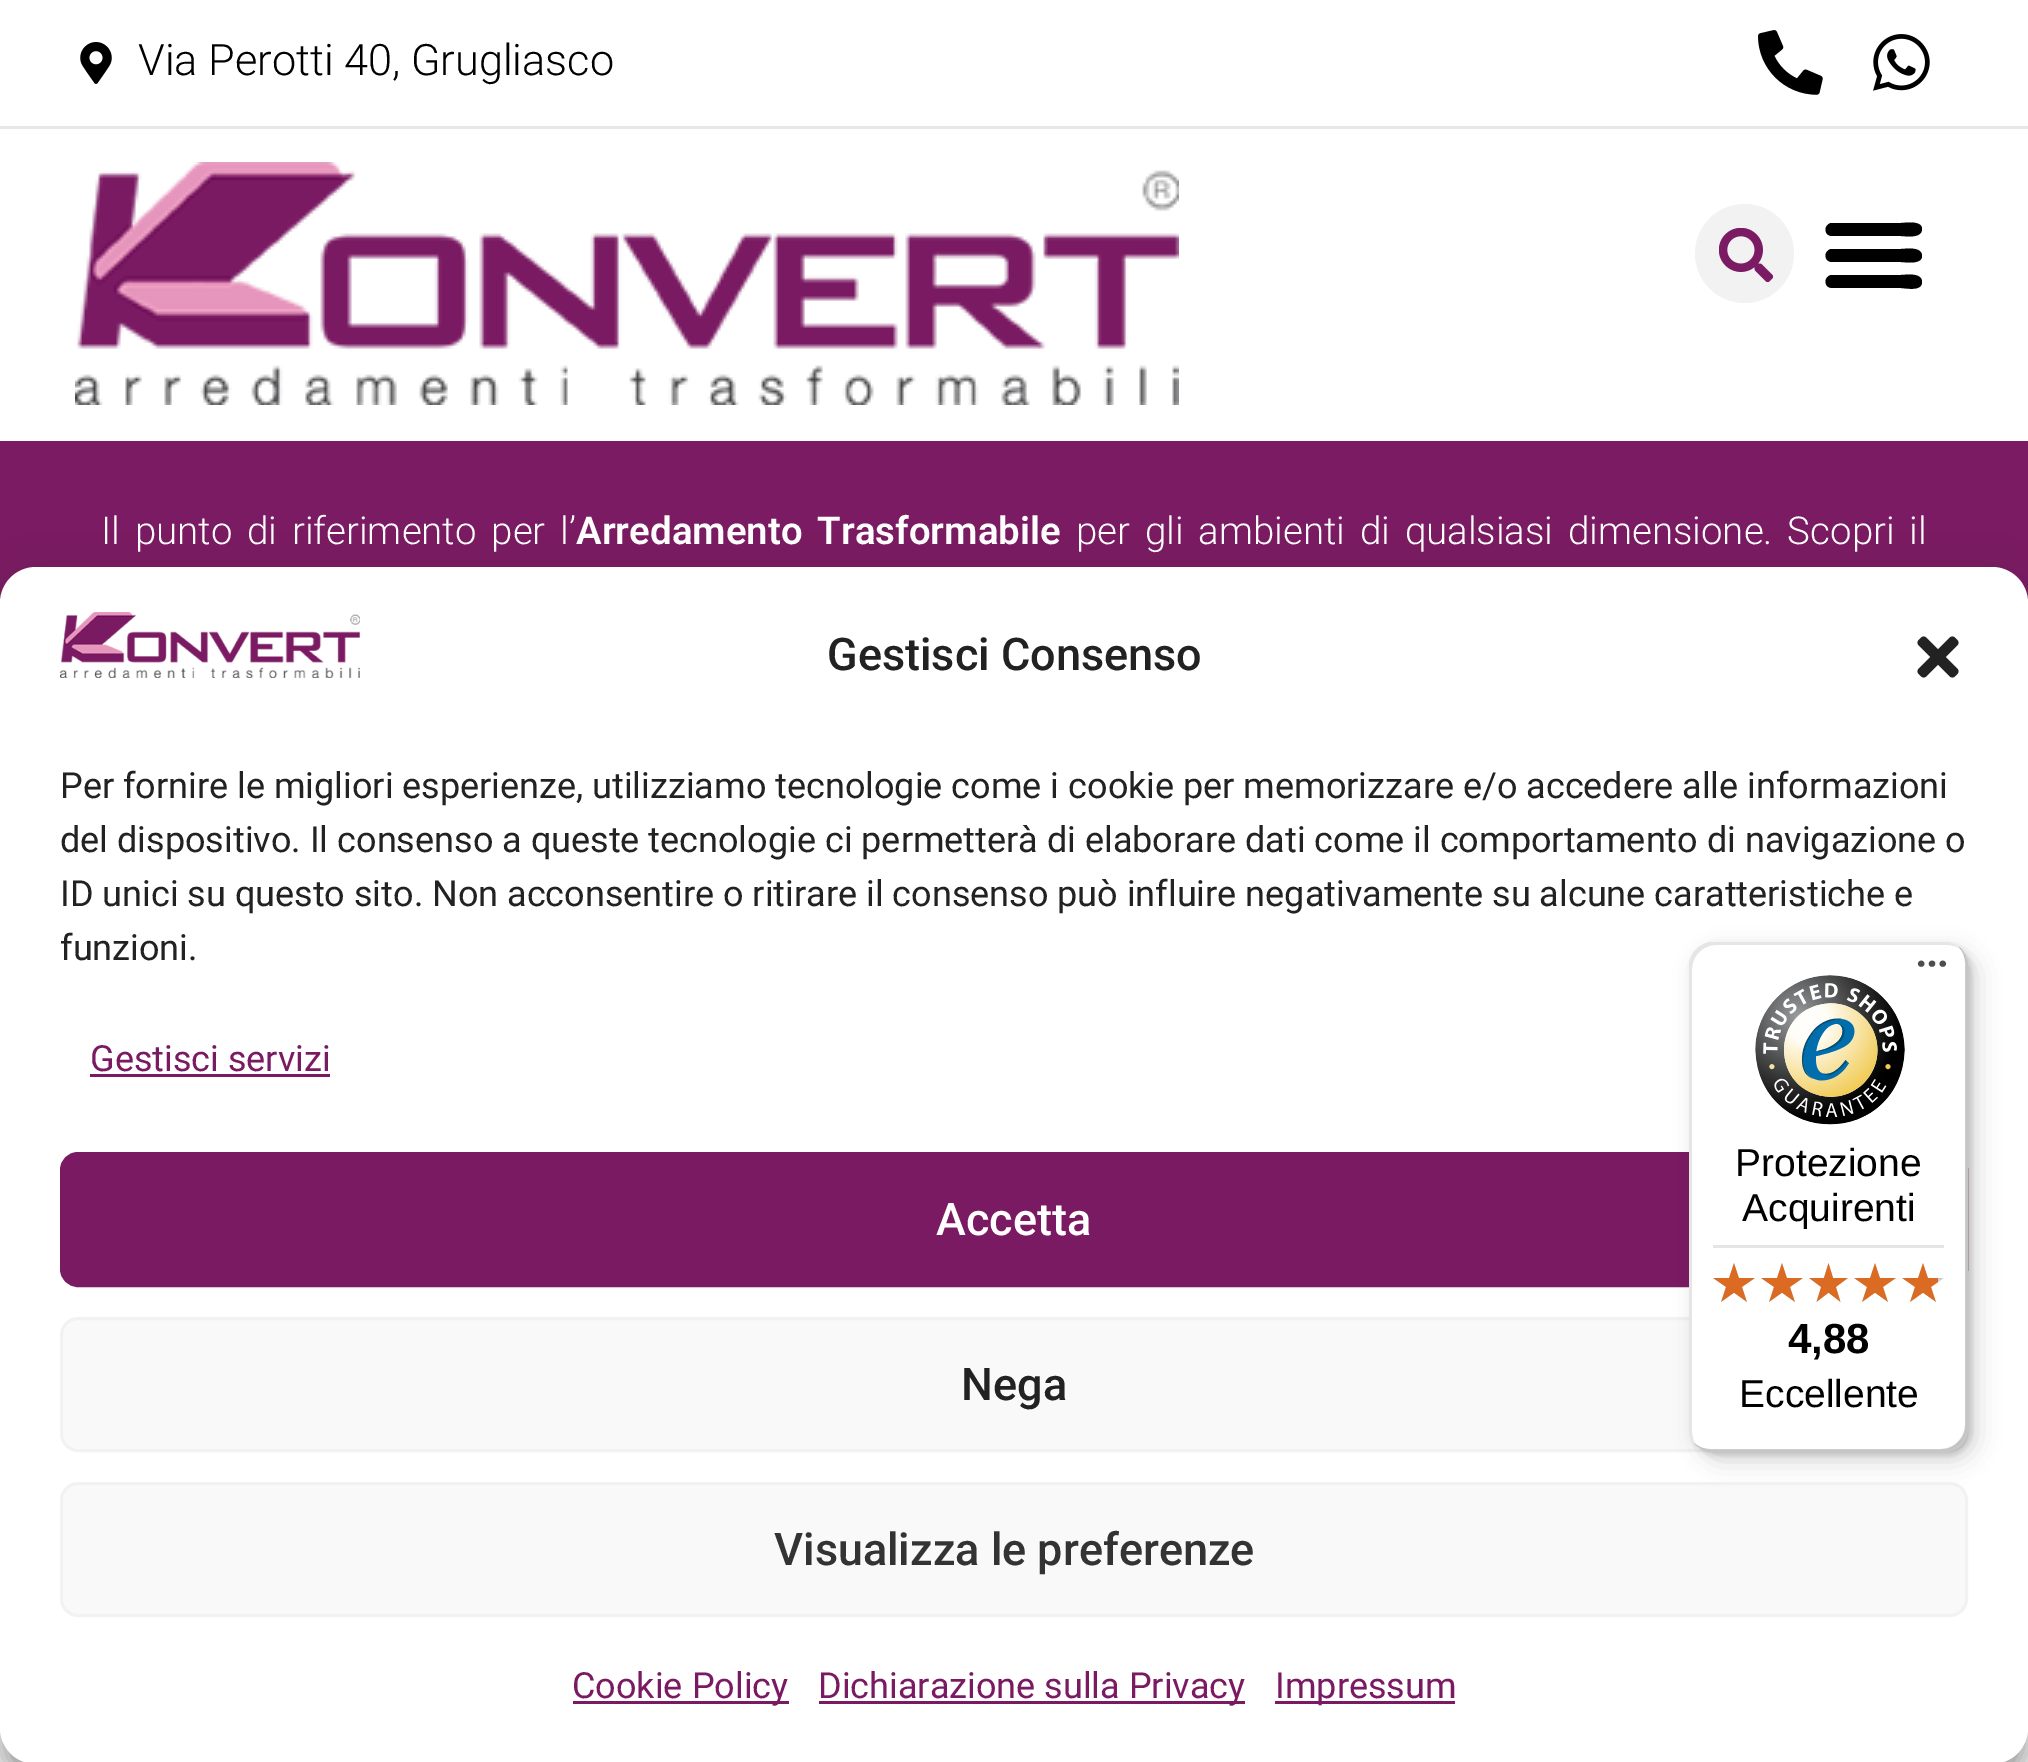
%!PS
<< /PageSize [2028 1762] /PageUsesTransparency true >> setpagedevice
/m/moveto load def
/l/rlineto load def
/c/rcurveto load def
/z/closepath load def
/f/fill load def
/s/stroke load def
/q/gsave load def
/Q_/grestore load def
/w/setlinewidth load def
/C { dup -16 bitshift 255 div exch dup -8 bitshift 255 and 255 div exch 255 and 255 div setrgbcolor } def
/F { [ exch dup neg 0 0 3 -1 roll 0 0 ] selectfont } def
/T { moveto show } def
/R { rectfill } def
/A { dup .setfillconstantalpha .setstrokeconstantalpha } def
/O { newpath 0 360 arc closepath } def
/Q { 5 dict begin { /r /h /w /y /x } { exch def } forall
  x r add y moveto x w add y 2 copy h add r arct x w add y h add x 1 index r arct
  x y h add x y r arct x y 2 copy exch w add exch r arct closepath end } def
/S { 12 dict begin { /a /b /q /h /w /y /x } { exch def } forall gsave /was 0 def
  9 -2 -9 { dup b mul 4 div /e exch def 1 sub .425 mul 2.718 exch exp 1 add a .99 .min exch div /now exch def
    1 1 now sub 1 was sub div sub A /was now def
    w h .min e 2 mul add 0 gt { x e sub y e sub w e 2 mul add h e 2 mul add
      q e add b .6 mul add w h .min 2 div e add .min 0 .max Q fill } if } for grestore end } def
/I { 5 dict begin { /h /w /y /x /name } { exch def } forall
  gsave x y translate w h scale
  w h 8 [w 0 0 h 0 0] name (r) file false 3 colorimage grestore end } def
0 .pushpdf14devicefilter
0 1762 translate 1 -1 scale
4 setmiterlimit
16#FFFFFF C
0 0 2028 1762 R
16#E7E7E7 C
0 126 2028 3 R
(1.rgb) 80 42 32 42 I
/Roboto-Light 43.25 F
16#000000 C
(Via Perotti 40, Grugliasco) 138 75 T
(2.rgb) 1758 30 65 65 I
(3.rgb) 1873 34 57 57 I
(4.rgb) 75 162 1104 243 I
16#F2F2F2 C
1744.5 253.5 49.5 O f
(5.rgb) 1719 228 54 54 I
16#000000 C
1832 236 m 69 0 l 4 0 21 3 21 -7 c 0 -9 -17 -6 -21 -6 c -70 0 l -8 2 -7 13 1 13 c z 1832 262 m 69 0 l 4 0 21 3 21 -6 c 0 -10 -17 -7 -21 -7 c -70 0 l -8 2 -7 13 1 13 c z 1832 288 m 69 0 l 4 0 21 4 21 -6 c 0 -10 -17 -7 -21 -7 c -70 0 l -8 2 -7 13 1 13 c z f
16#7B1B63 C
0 441 2028 162 R
/Roboto-Light 38.4 F
16#FFFFFF C
101 544 m 5.5 0 32 (Il punto di riferimento per l’) widthshow
/Roboto-SemiBold 38.4 F
576 544 m 5.5 0 32 (Arredamento Trasformabile) widthshow
/Roboto-Light 38.4 F
1076 544 m 5.5 0 32 (per gli ambienti di qualsiasi dimensione. Scopri il) widthshow
16#000000 C
0 585 2028 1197 36 9 .23 S
0 597 2028 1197 36 30 .19 S
16#FFFFFF C
0 567 2028 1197 36 Q f
(6.rgb) 60 612 300 66 I
/Roboto-Medium 45 F
16#222222 C
(Gestisci Consenso) 827 670 T
(7.rgb) 1917 636 42 42 I
/Roboto-Regular 36 F
(Per fornire le migliori esperienze, utilizziamo tecnologie come i cookie per memorizzare e/o accedere alle informazioni) 60 798 T
(del dispositivo. Il consenso a queste tecnologie ci permetterà di elaborare dati come il comportamento di navigazione o) 60 852 T
(ID unici su questo sito. Non acconsentire o ritirare il consenso può influire negativamente su alcune caratteristiche e) 60 906 T
(funzioni.) 60 960 T
16#7A1A62 C
(Gestisci servizi) 90 1071 T
90 1074 240 3 R
61.5 1153.5 1905 132 16.5 Q q f Q_
3 w
s
/Roboto-Medium 45 F
16#FFFFFF C
(Accetta) 936 1235 T
16#F9F9F9 C
61.5 1318.5 1905 132 16.5 Q q f Q_
16#F2F2F2 C
s
16#222222 C
(Nega) 961 1400 T
16#F9F9F9 C
61.5 1483.5 1905 132 16.5 Q q f Q_
16#F2F2F2 C
s
16#333333 C
(Visualizza le preferenze) 774 1565 T
16#7A1A62 C
573 1701 216 3 R
/Roboto-Regular 36 F
(Cookie Policy) 572 1698 T
819 1701 426 3 R
(Dichiarazione sulla Privacy) 818 1698 T
1275 1701 180 3 R
(Impressum) 1275 1698 T
16#000000 C
1698 951 279 510 24 12 .15 S
1692 945 279 510 24 3 .15 S
16#FFFFFF C
1689 942 279 510 24 Q f
0.1 A
16#000000 C
1716 945 m 231 0 l 6 0 12 2 16 6 c -5 -5 -11 -9 -19 -9 c -231 0 l -13 0 -24 11 -24 24 c 0 462 l 0 8 4 14 9 19 c -4 -4 -6 -10 -6 -16 c 0 -462 l 0 -13 11 -24 24 -24 c z f
0.2 A
1694 1443 m 5 5 11 9 19 9 c 231 0 l 13 0 24 -11 24 -24 c 0 -462 l 0 -8 -4 -14 -9 -19 c 4 4 6 10 6 16 c 0 462 l 0 13 -11 24 -24 24 c -231 0 l -6 0 -12 -2 -16 -6 c z f
16#323232 C
1694 1443 m 5 6 11 9 19 9 c 231 0 l 13 0 24 -11 24 -24 c 0 -462 l 0 -8 -3 -14 -9 -19 c 4 5 7 11 7 17 c 0 462 l 0 13 -11 24 -24 24 c -231 0 l -6 0 -12 -3 -17 -7 c z f
0.3 A
16#FFFFFF C
1693 1441 m 4 7 12 11 20 11 c 231 0 l 13 0 24 -11 24 -24 c 0 -462 l 0 -7 -3 -13 -7 -17 c 3 4 5 9 5 15 c 0 462 l 0 14 -10 24 -24 24 c -230 0 l -8 0 -15 -3 -19 -9 c z f
1 A
(8.rgb) 1917 960 30 7 I
(9.rgb) 1755 975 150 150 I
/LiberationSans-Regular 39 F
16#000000 C
(Protezione) 1735 1176 T
(Acquirenti) 1742 1221 T
16#E5E5E5 C
1713 1245 231 3 R
(10.rgb) 1713 1263 42 39 I
(10.rgb) 1761 1263 42 39 I
(11.rgb) 1809 1263 39 39 I
(10.rgb) 1854 1263 42 39 I
(10.rgb) 1902 1263 42 39 I
(12.rgb) 1713 1263 42 39 I
(12.rgb) 1761 1263 42 39 I
(13.rgb) 1809 1263 39 39 I
(12.rgb) 1854 1263 42 39 I
(14.rgb) 1902 1263 36 39 I
/LiberationSans-Bold 42 F
16#000000 C
(4,88) 1788 1353 T
/LiberationSans-Regular 39 F
(Eccellente) 1739 1407 T
.poppdf14devicefilter showpage
